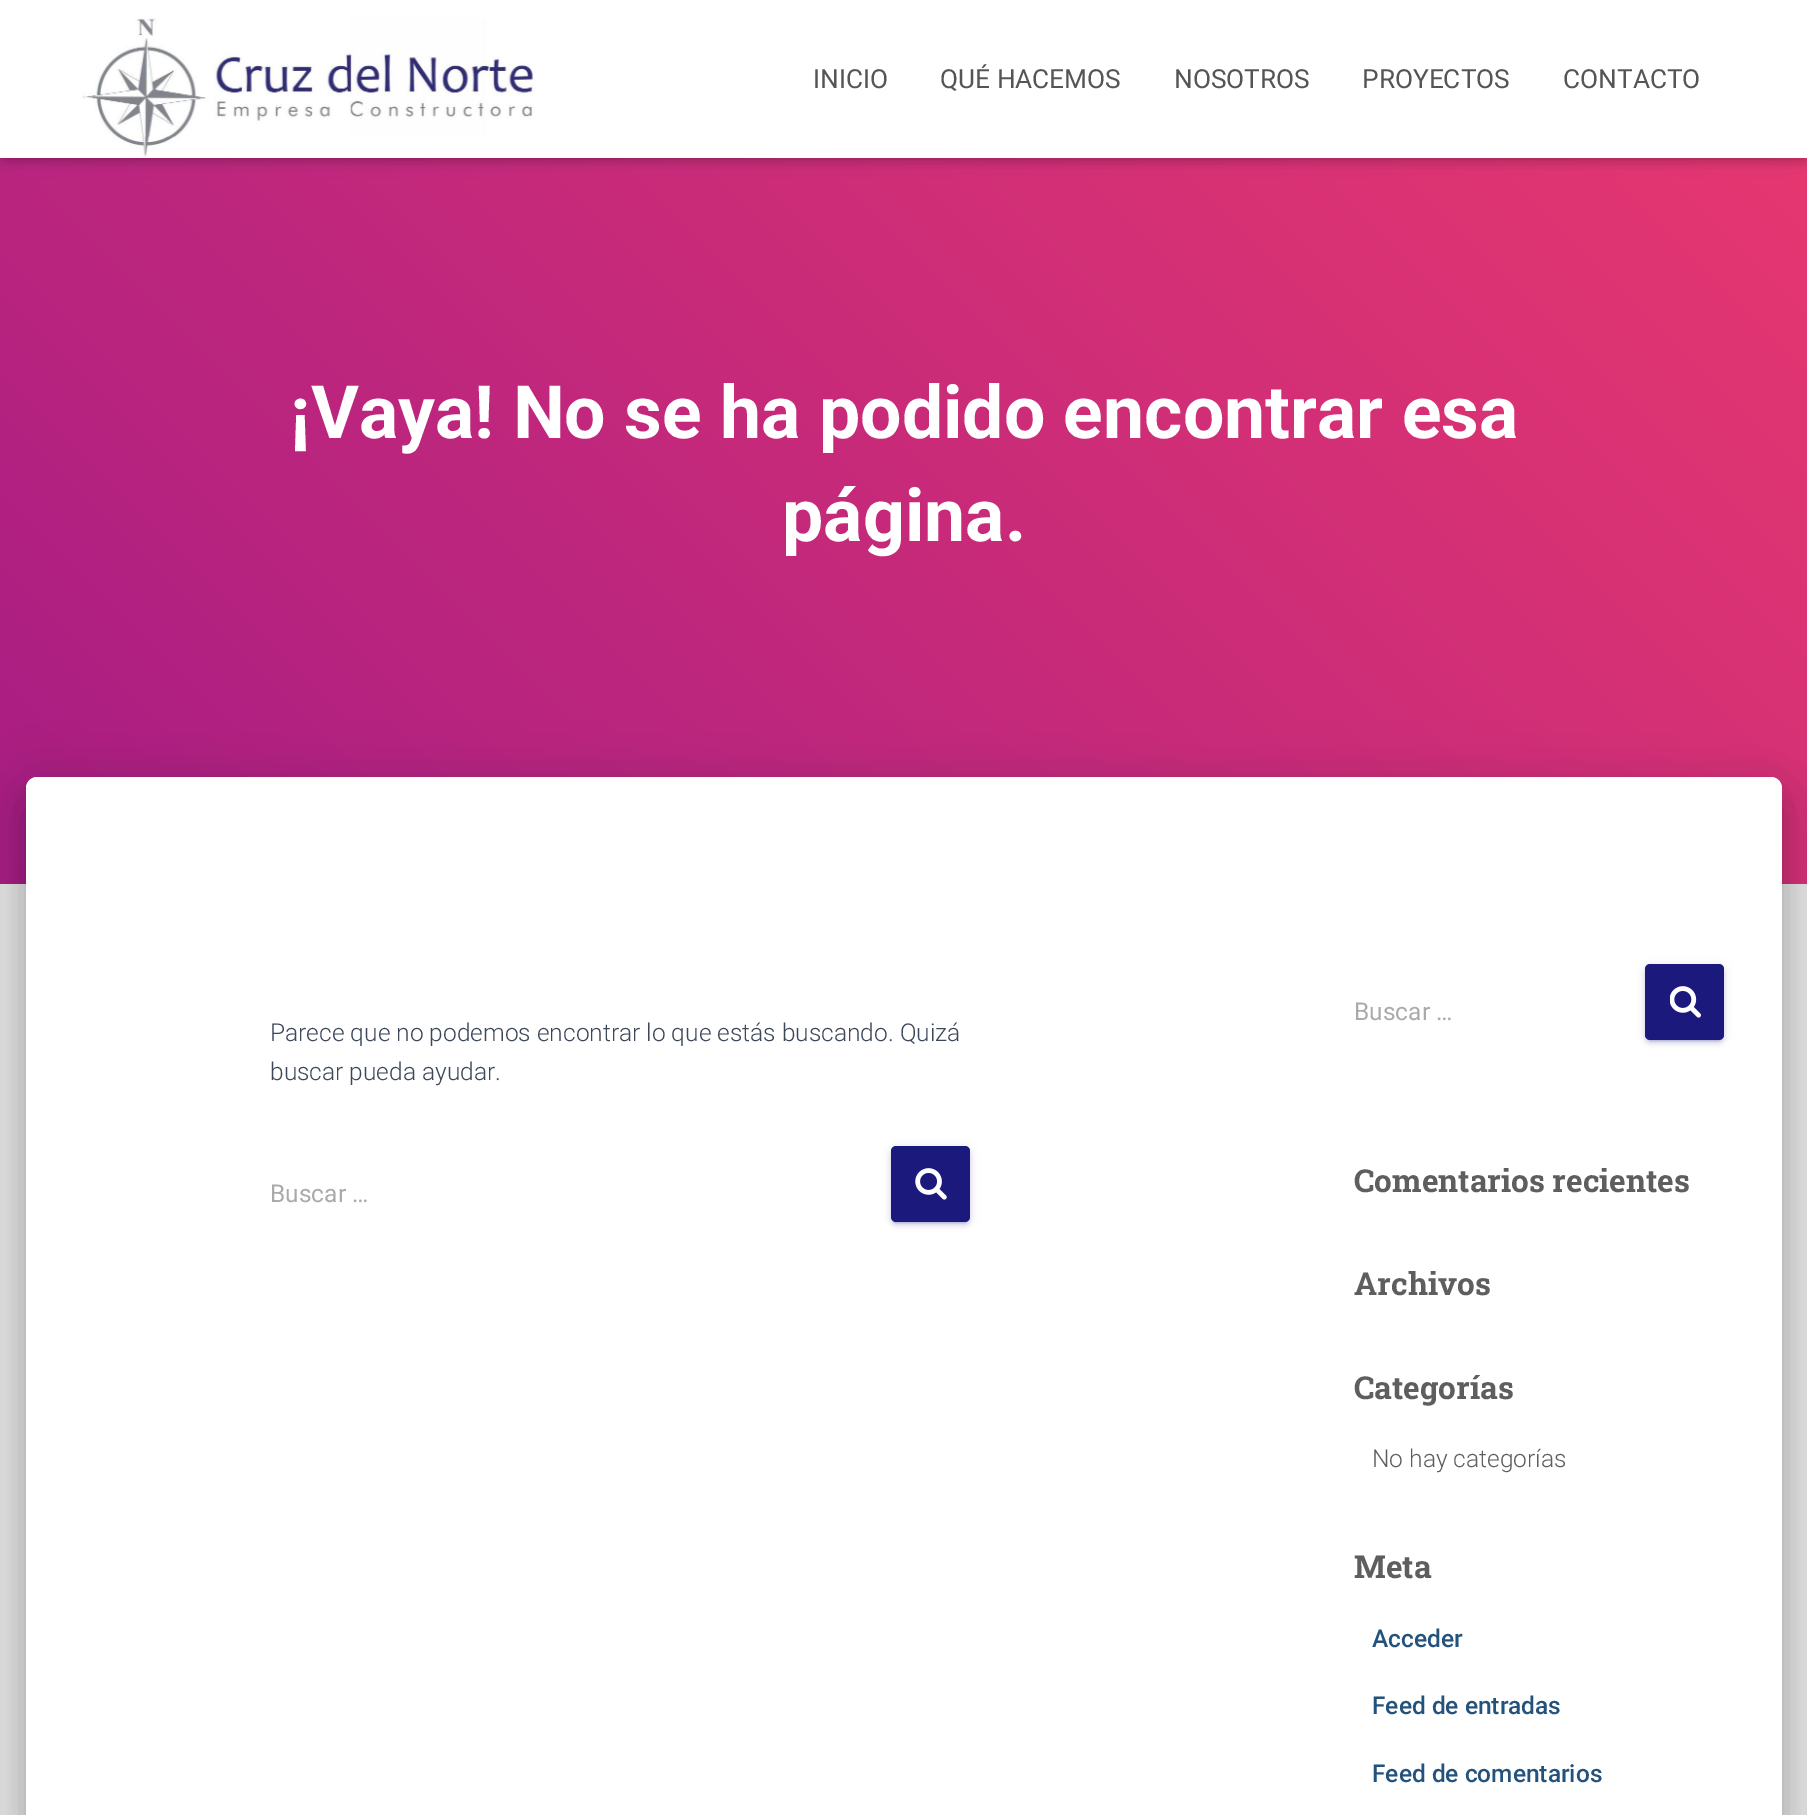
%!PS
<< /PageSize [1807 1815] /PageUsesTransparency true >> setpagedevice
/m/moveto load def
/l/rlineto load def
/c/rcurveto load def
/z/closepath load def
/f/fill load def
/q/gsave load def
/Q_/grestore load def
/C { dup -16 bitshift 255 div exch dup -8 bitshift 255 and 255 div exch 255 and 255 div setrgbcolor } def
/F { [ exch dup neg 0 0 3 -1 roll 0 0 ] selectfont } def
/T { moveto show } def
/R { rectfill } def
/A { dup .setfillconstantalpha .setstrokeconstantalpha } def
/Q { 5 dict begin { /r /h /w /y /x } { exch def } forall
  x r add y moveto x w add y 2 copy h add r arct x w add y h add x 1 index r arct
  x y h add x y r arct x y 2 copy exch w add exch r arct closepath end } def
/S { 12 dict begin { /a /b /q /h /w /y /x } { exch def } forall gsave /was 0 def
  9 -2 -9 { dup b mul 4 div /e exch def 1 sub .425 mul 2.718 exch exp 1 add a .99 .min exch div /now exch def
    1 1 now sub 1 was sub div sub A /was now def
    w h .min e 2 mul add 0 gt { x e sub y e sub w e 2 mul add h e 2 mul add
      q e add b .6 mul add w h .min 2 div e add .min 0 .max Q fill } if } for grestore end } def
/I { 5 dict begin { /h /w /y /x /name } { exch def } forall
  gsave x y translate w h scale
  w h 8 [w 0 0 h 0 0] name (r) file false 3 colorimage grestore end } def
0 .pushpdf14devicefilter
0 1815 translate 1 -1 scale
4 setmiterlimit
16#E5E5E5 C
0 0 1807 1815 R
q 0 158 m 1807 0 l 0 726 l -1807 0 l z clip newpath
<< /ShadingType 2 /ColorSpace /DeviceRGB /Coords [230 1114 1578 -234] /Extend [true true] /Function << /FunctionType 2 /Domain [0 1] /C0 [.659 .114 .518] /C1 [.918 .224 .435] /N 1 >> >> shfill Q_
16#000000 C
4 11 1800 150 0 4.5 .1 S
0 2 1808 157 0 9 .12 S
11 12 1786 137 0 9 .42 S
16#FFFFFF C
0 0 1807 158 R
(1.rgb) 82 18 453 139 I
/Roboto-Regular 26.25 F
16#555555 C
(INICIO) 813 88 T
(QUÉ HACEMOS) 940 88 T
(NOSOTROS) 1174 88 T
(PROYECTOS) 1362 88 T
(CONTACTO) 1563 88 T
/Roboto-Bold 73.5 F
16#FFFFFF C
(¡Vaya! No se ha podido encontrar esa) 290 438 T
(página.) 782 541 T
16#000000 C
35 800 1738 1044 2 9 .2 S
18 779 1772 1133 19 26 .12 S
23 802 1762 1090 14 21 .14 S
16#FFFFFF C
37 777 m 1734 0 l 6 0 11 5 11 11 c 0 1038 l -1756 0 l 0 -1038 l 0 -6 5 -11 11 -11 c z f
/Roboto-Light 24.5 F
16#3C4858 C
(Parece que no podemos encontrar lo que estás buscando. Quizá) 270 1041 T
(buscar pueda ayudar.) 270 1080 T
/Roboto-Regular 24.5 F
16#AAAAAA C
(Buscar …) 270 1202 T
16#1B1A7C C
891 1148 79 75 5 4.5 .12 S
894 1155 72 68 2 1 .2 S
891 1150 79 75 5 2 .14 S
891 1146 79 76 5 Q f
(2.rgb) 915 1168 32 32 I
16#AAAAAA C
(Buscar …) 1354 1020 T
16#1B1A7C C
1645 966 79 75 5 4.5 .12 S
1649 973 71 68 2 1 .2 S
1645 968 79 75 5 2 .14 S
1645 964 79 76 5 Q f
(3.rgb) 1670 986 31 32 I
/RobotoSlab-Bold 31.5 F
16#5E5E5E C
(Comentarios recientes) 1354 1192 T
(Archivos) 1354 1295 T
(Categorías) 1354 1399 T
/Roboto-Light 24.5 F
(No hay categorías) 1372 1467 T
/RobotoSlab-Bold 31.5 F
(Meta) 1354 1578 T
/Roboto-Medium 24.5 F
16#23527C C
(Acceder) 1372 1647 T
(Feed de entradas) 1372 1714 T
(Feed de comentarios) 1372 1782 T
.poppdf14devicefilter showpage
